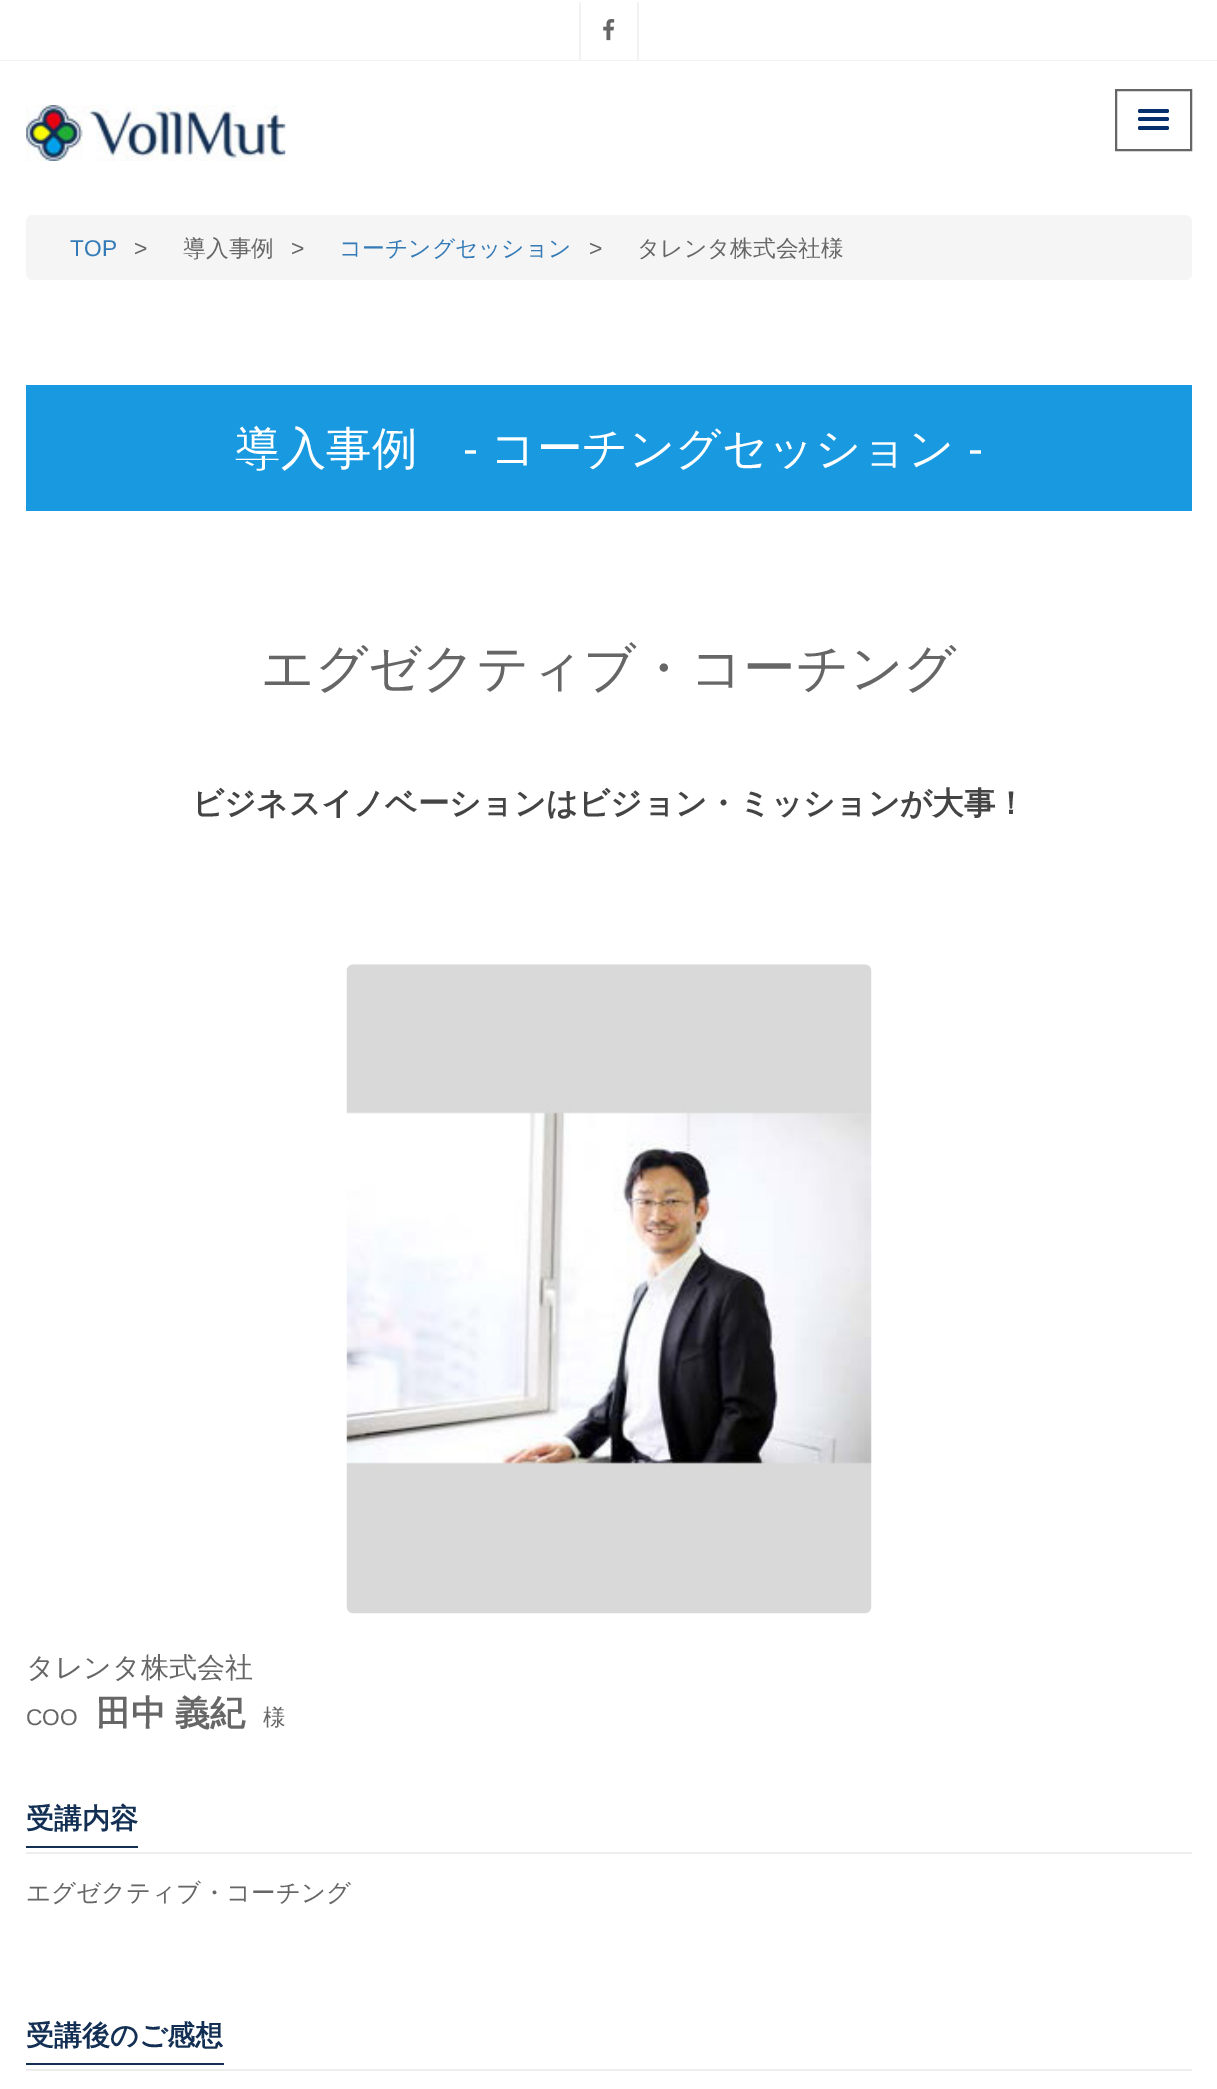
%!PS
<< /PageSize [1217 2089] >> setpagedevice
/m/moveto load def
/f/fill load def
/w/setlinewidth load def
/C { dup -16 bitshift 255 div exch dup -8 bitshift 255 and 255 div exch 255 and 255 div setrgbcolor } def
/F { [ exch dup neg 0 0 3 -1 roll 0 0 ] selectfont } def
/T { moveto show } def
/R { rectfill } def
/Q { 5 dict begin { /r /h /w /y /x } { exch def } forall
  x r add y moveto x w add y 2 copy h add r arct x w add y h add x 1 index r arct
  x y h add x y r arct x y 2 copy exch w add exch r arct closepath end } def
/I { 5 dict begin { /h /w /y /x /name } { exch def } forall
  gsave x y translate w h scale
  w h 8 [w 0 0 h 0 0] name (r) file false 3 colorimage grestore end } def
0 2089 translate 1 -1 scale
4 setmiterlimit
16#FFFFFF C
0 0 1217 2089 R
16#F2F2F2 C
0 60 1217 1 R
637 2 2 58 R
579 2 2 58 R
(1.rgb) 603 19 12 22 I
(2.rgb) 26 105 260 56 I
16#666666 C
2 w
1116 90 75 60 rectstroke
16#062F6D C
1138 109 31 4 2 Q f
1138 117 31 4 2 Q f
1138 126 31 4 2 Q f
16#F5F5F5 C
26 215 1166 65 7 Q f
/LiberationSans-Regular 22.75 F
16#337AB7 C
(TOP) 70 256 T
16#666666 C
(>) 134 256 T
/WenQuanYiZenHei-Medium 22.75 F
(導入事例) 183 256 T
/LiberationSans-Regular 22.75 F
(>) 291 256 T
/WenQuanYiZenHei-Medium 22.75 F
16#337AB7 C
(コーチングセッション) 339 256 T
/LiberationSans-Regular 22.75 F
16#666666 C
(>) 589 256 T
/WenQuanYiZenHei-Medium 22.75 F
(タレンタ株式会社様) 637 256 T
16#199AE0 C
26 385 1166 126 R
/WenQuanYiZenHei-Medium 45.5 F
16#FFFFFF C
(導入事例) 235 464 T
/LiberationSans-Regular 45.5 F
(-) 463 464 T
/WenQuanYiZenHei-Medium 45.5 F
(コーチングセッション) 490 464 T
/LiberationSans-Regular 45.5 F
(-) 968 464 T
/WenQuanYiZenHei-Medium 52.5 F
16#666666 C
(エグゼクティブ・コーチング) 261 686 T
/WenQuanYiZenHei-Bold 31.5 F
16#444444 C
(ビジネスイノベーションはビジョン・ミッションが大事！) 192 814 T
(3.rgb) 346 964 526 650 I
/WenQuanYiZenHei-Medium 28 F
16#666666 C
(タレンタ株式会社) 26 1677 T
/LiberationSans-Regular 22.75 F
(COO) 26 1725 T
/WenQuanYiZenHei-Bold 35 F
96 1725 m -1 0 32 (田中 義紀) widthshow
/WenQuanYiZenHei-Medium 22.75 F
(様) 263 1725 T
16#EEEEEE C
26 1852 1166 2 R
/WenQuanYiZenHei-Bold 28 F
16#133054 C
(受講内容) 26 1828 T
26 1846 112 2 R
/WenQuanYiZenHei-Medium 24.5 F
16#666666 C
(エグゼクティブ・コーチング) 26 1901 T
16#EEEEEE C
26 2069 1166 2 R
/WenQuanYiZenHei-Bold 28 F
16#133054 C
(受講後のご感想) 26 2045 T
26 2063 198 2 R
showpage
